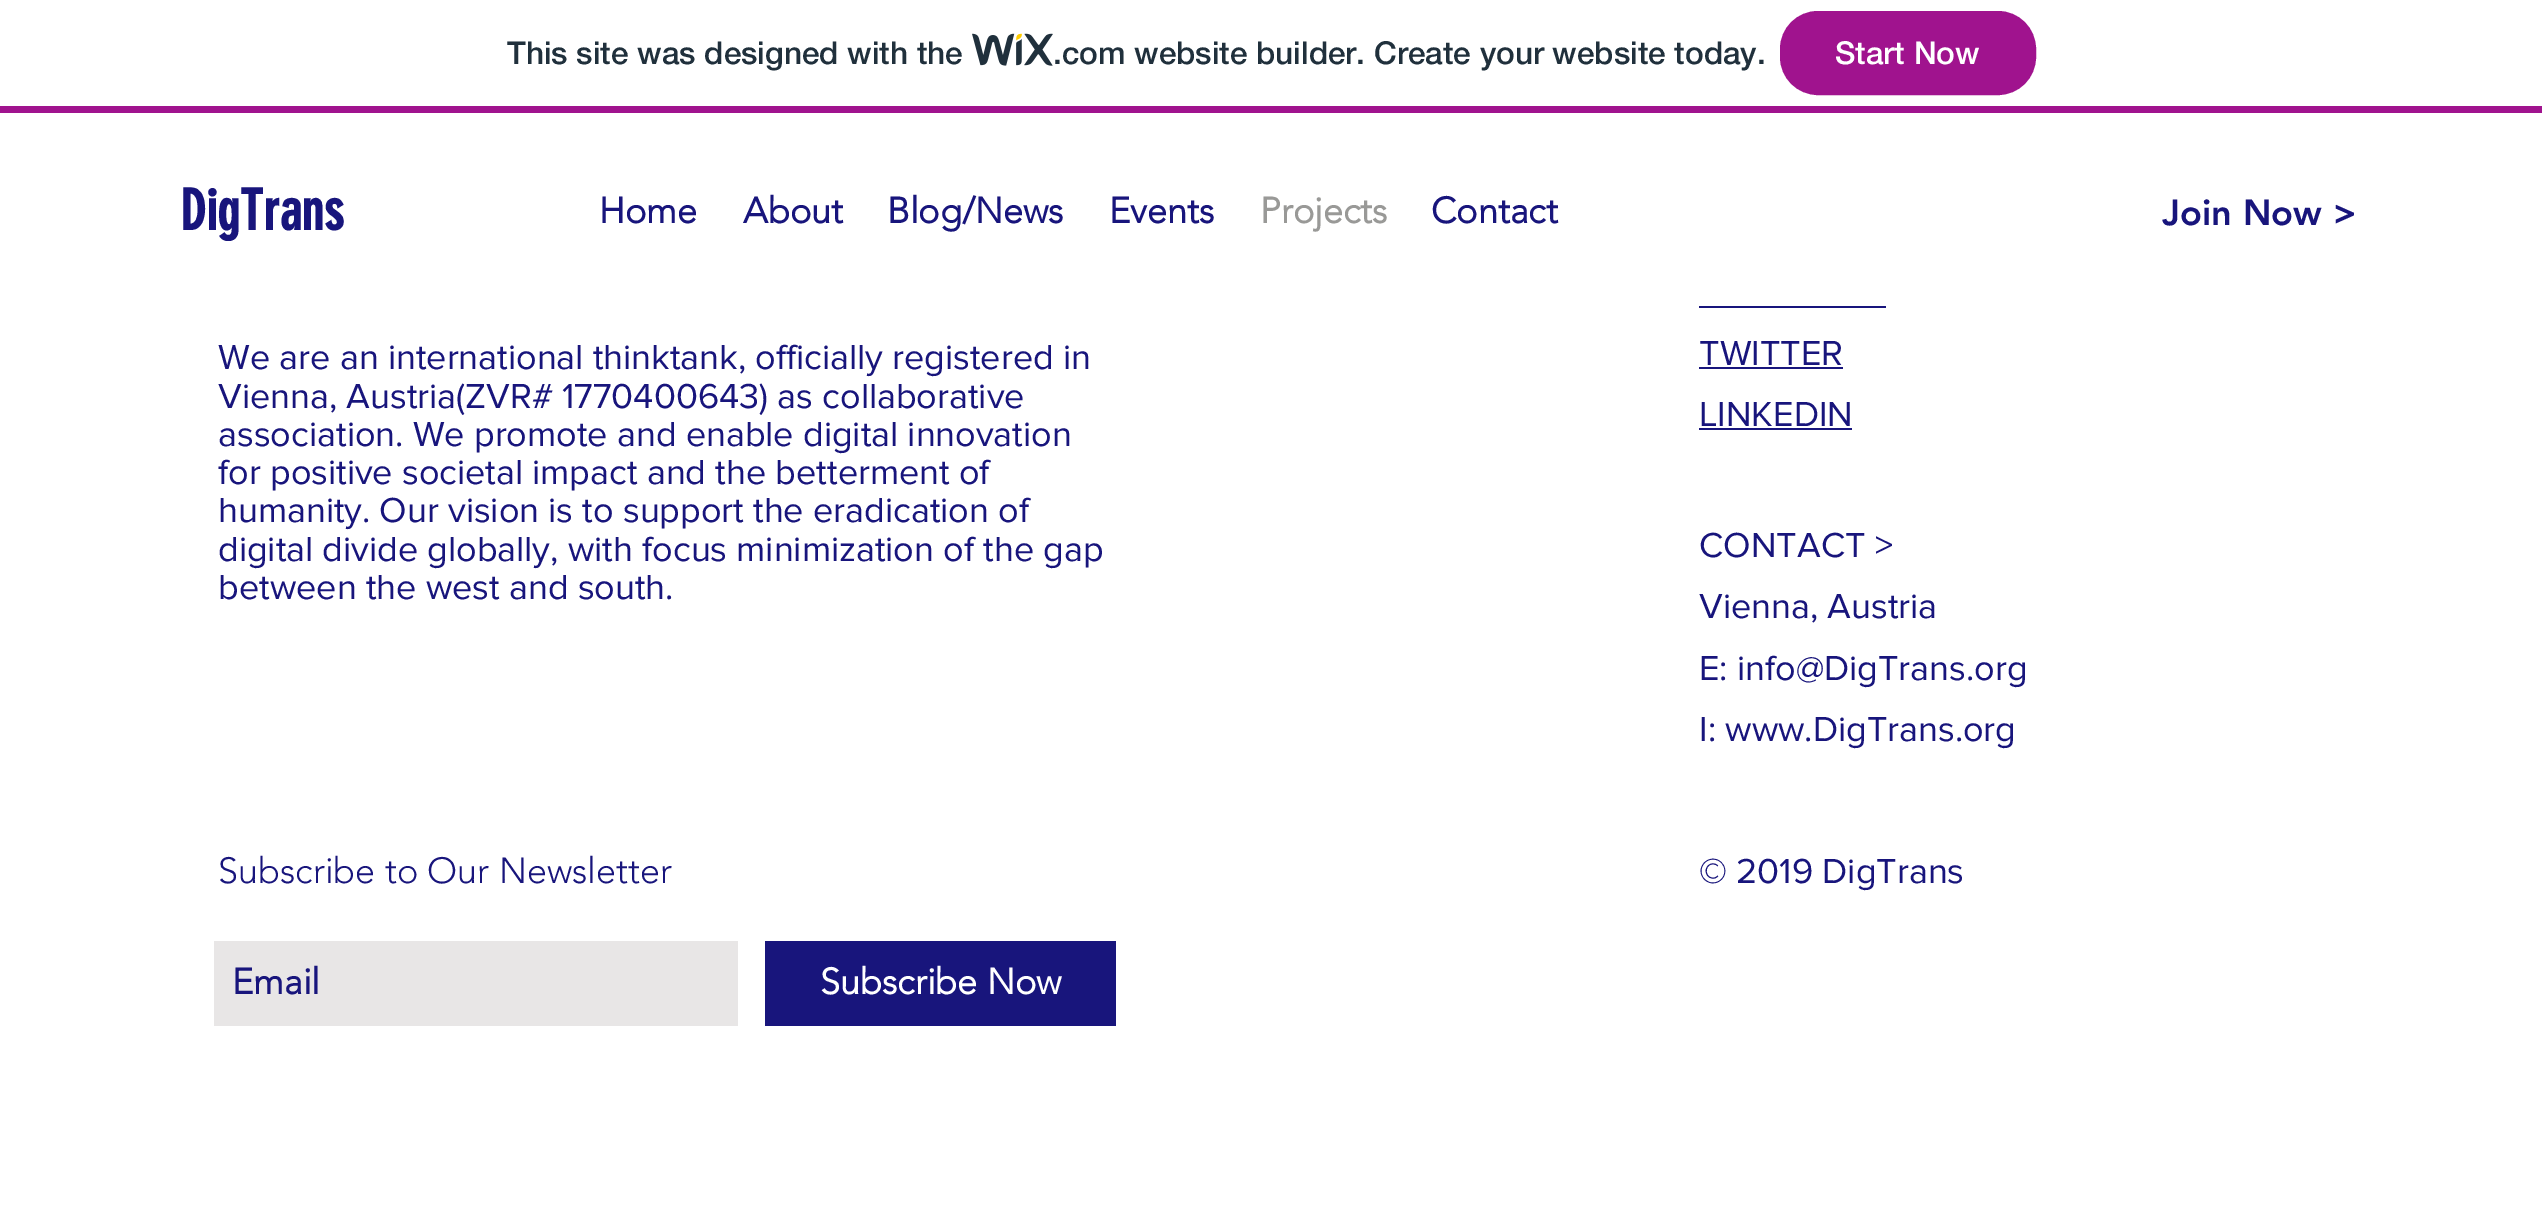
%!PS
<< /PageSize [2542 1215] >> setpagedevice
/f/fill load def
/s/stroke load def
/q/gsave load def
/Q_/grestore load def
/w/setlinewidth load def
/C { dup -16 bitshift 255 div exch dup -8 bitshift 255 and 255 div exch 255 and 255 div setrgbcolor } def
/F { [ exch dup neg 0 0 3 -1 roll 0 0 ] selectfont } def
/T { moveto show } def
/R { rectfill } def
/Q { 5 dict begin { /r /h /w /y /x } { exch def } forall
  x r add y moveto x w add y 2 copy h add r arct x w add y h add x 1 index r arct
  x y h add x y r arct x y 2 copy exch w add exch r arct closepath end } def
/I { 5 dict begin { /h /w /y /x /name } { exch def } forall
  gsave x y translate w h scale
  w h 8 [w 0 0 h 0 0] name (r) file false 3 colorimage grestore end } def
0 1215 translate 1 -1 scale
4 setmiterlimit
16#FFFFFF C
0 0 2542 1215 R
16#A0138E C
0 106 2542 7 R
/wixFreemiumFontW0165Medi-Medium 31.5 F
16#20303C C
(This site was designed with the) 507 64 T
(1.rgb) 972 33 81 33 I
(.com website builder. Create your website today.) 1053 64 T
16#A0138E C
1781 12 254 82 37 Q q f Q_
2 w
s
16#FFFFFF C
(Start Now) 1835 64 T
/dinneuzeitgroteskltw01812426-Bold 56 F
16#18157C C
(DigTrans) 180 230 T
/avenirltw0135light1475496-Bold 36 F
(Home) 599 223 T
(About) 743 223 T
(Blog/News) 887 223 T
(Events) 1109 223 T
16#999997 C
(Projects) 1260 223 T
16#18157C C
(Contact) 1431 223 T
/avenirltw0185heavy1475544-Black 36 F
(Join Now >) 2162 225 T
/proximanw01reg-Regular 36 F
(We are an international thinktank, officially registered in) 218 369 T
(Vienna, Austria\(ZVR# 1770400643\) as collaborative) 218 408 T
(association. We promote and enable digital innovation) 218 446 T
(for positive societal impact and the betterment of) 218 484 T
(humanity. Our vision is to support the eradication of) 218 522 T
(digital divide globally, with focus minimization of the gap) 218 561 T
(between the west and south.) 218 599 T
1699 306 187 2 R
(TWITTER) 1699 365 T
1699 367 144 2 R
(LINKEDIN) 1699 426 T
1699 428 153 2 R
(CONTACT >) 1699 557 T
(Vienna, Austria) 1699 618 T
(E: info@DigTrans.org) 1699 680 T
(I: www.DigTrans.org) 1699 741 T
/avenirltw0135light1475496-Light 36 F
(Subscribe to Our Newsletter) 218 883 T
16#E8E6E6 C
214 941 524 85 R
/avenirltw0135light1475496-Bold 36 F
16#18157C C
(Email) 232 994 T
765 941 351 85 R
16#FFFFFF C
(Subscribe Now) 820 994 T
/proximanw01reg-Regular 36 F
16#18157C C
(© 2019 DigTrans) 1699 883 T
showpage
